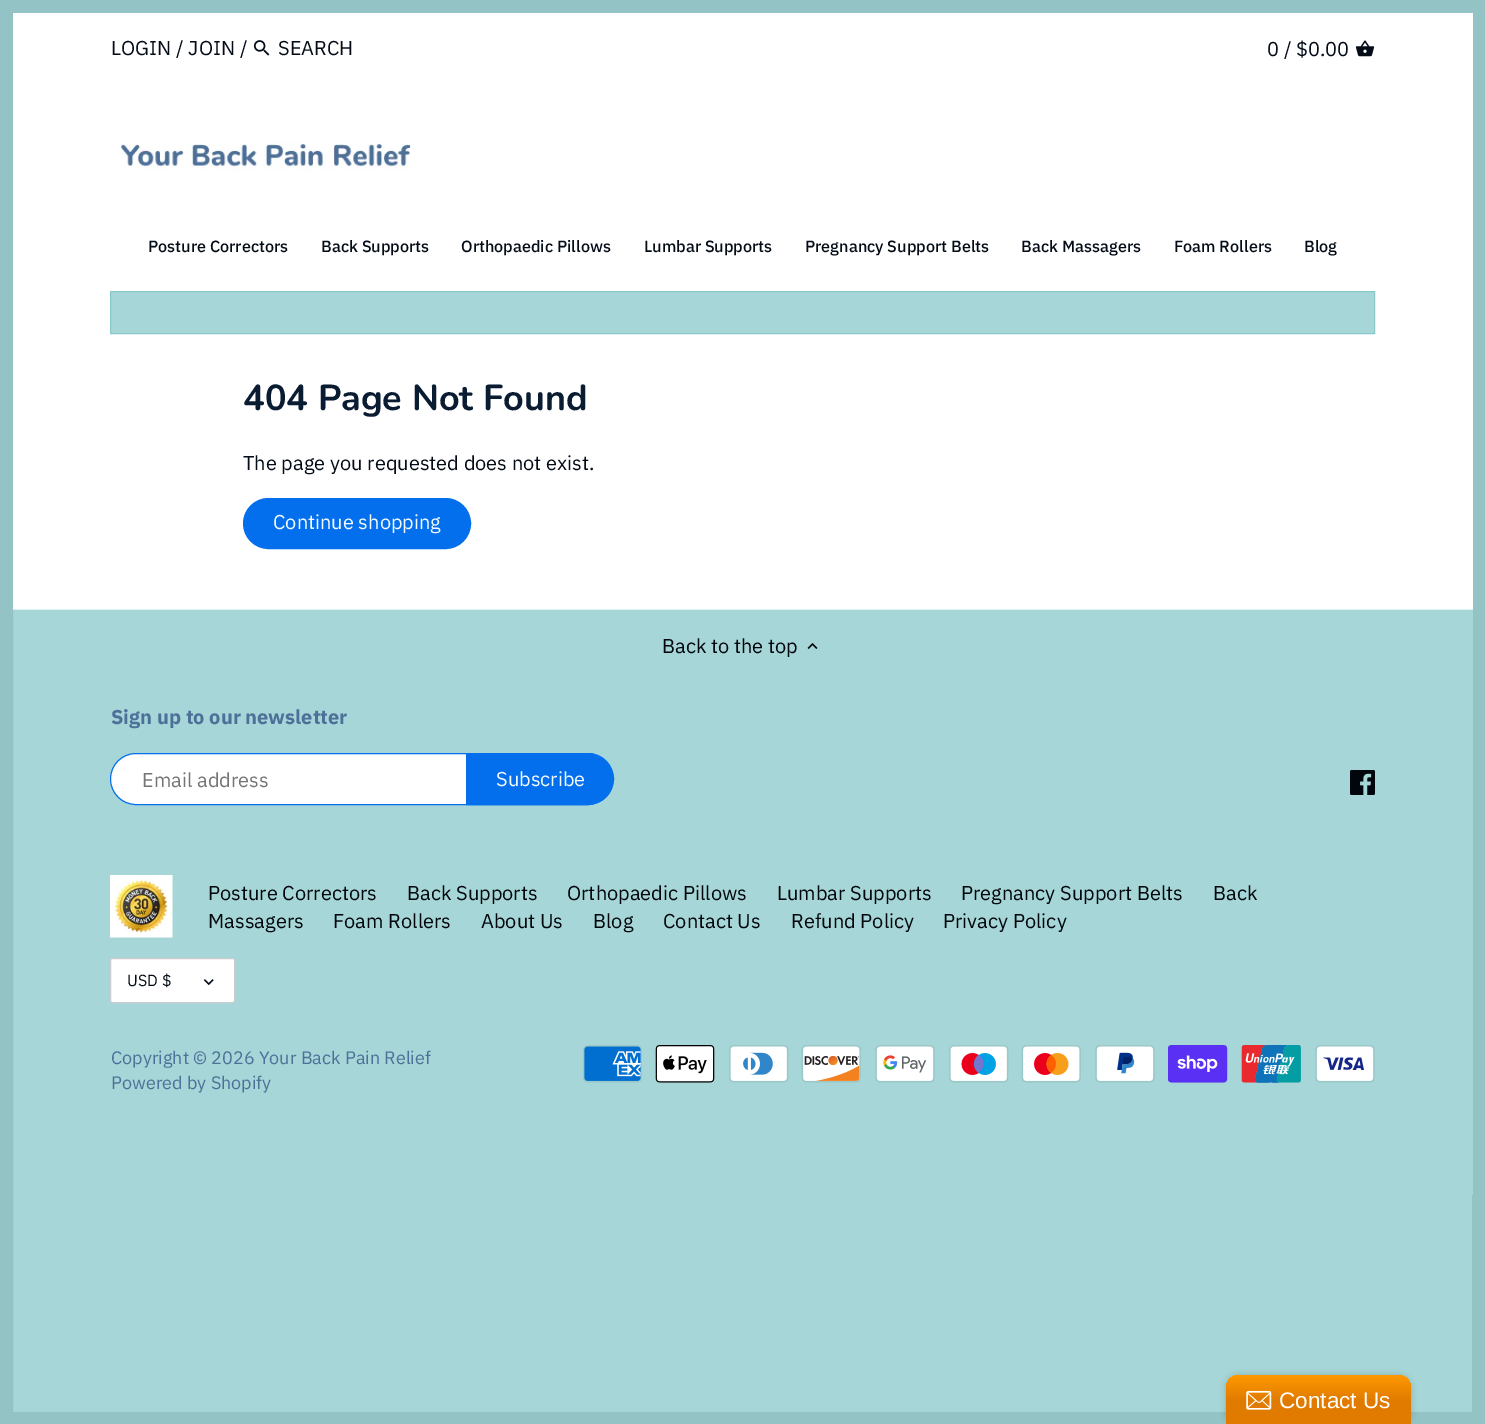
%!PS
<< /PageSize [1485 1424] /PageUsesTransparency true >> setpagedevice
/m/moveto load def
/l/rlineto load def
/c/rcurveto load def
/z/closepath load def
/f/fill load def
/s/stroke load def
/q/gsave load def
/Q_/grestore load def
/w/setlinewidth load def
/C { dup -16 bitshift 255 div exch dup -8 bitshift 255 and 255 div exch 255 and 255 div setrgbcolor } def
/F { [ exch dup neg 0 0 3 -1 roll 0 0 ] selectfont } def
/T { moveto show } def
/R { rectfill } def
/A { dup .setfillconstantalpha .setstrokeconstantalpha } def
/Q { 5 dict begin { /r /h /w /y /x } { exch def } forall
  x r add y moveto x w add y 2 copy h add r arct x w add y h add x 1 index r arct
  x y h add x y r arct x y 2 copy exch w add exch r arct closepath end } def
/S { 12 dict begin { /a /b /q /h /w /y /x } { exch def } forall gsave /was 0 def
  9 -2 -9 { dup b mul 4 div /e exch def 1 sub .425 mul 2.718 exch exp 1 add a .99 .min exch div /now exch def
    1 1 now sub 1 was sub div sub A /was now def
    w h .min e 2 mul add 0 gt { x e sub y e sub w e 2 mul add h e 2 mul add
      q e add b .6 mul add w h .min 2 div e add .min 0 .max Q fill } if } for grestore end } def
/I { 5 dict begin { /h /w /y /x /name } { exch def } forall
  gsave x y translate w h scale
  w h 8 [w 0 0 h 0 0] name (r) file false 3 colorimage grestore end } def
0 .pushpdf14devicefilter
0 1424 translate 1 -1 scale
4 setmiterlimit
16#A6D6D7 C
0 0 1485 1424 R
16#93C3C4 C
13 w
6.5 6.5 1472 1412 rectstroke
16#FFFFFF C
13 13 1460 596 R
/IBMPlexSans-Regular 20 F
16#030C17 C
(LOGIN / JOIN /) 111 55 T
(1.rgb) 253 40 17 16 I
(SEARCH) 278 55 T
(0 / $0.00) 1267 56 T
(2.rgb) 1355 40 20 17 I
(3.rgb) 118 140 293 32 I
/IBMPlexSans-Medium 16.25 F
(Posture Correctors) 148 252 T
(Back Supports) 321 252 T
(Orthopaedic Pillows) 461 252 T
(Lumbar Supports) 644 252 T
(Pregnancy Support Belts) 805 252 T
(Back Massagers) 1021 252 T
(Foam Rollers) 1174 252 T
(Blog) 1304 252 T
16#A6D6D7 C
110.5 291.5 m 1264 0 l 0 42 l -1264 0 l z q f Q_
16#8AC9CA C
1 w
s
/Nunito-Bold 36 F
16#0A1C32 C
(404 Page Not Found) 243 410 T
/IBMPlexSans-Regular 20 F
16#030C17 C
(The page you requested does not exist.) 243 470 T
16#046FED C
244.5 499.5 225 48 24 Q q f Q_
3 w
s
16#F4FBFC C
(Continue shopping) 273 529 T
16#A6D6D7 C
1472 610 1 585 R
16#D8F4F5 C
13 609 1460 1 R
16#01060C C
(Back to the top) 662 653 T
(4.rgb) 807 643 11 6 I
/IBMPlexSans-Bold 20 F
16#4D7099 C
(Sign up to our newsletter) 111 724 T
16#FFFFFF C
110.5 753.5 502 51 25.5 Q q f Q_
16#046FED C
1 w
s
/IBMPlexSans-Regular 20 F
16#757575 C
(Email address) 142 787 T
16#046FED C
466.5 753.5 m 121.5 0 l 14 0 25.5 11.5 25.5 25.5 c 0 14 -11.5 25.5 -25.5 25.5 c -121.5 0 l z q f Q_
s
16#F4FBFC C
(Subscribe) 496 786 T
(5.rgb) 1350 770 25 25 I
(6.rgb) 110 875 63 63 I
16#01060C C
(Posture Correctors) 208 900 T
(Back Supports) 407 900 T
(Orthopaedic Pillows) 567 900 T
(Lumbar Supports) 777 900 T
(Pregnancy Support Belts) 961 900 T
(Back) 1213 900 T
(Massagers) 208 928 T
(Foam Rollers) 333 928 T
(About Us) 481 928 T
(Blog) 593 928 T
(Contact Us) 663 928 T
(Refund Policy) 791 928 T
(Privacy Policy) 943 928 T
16#FFFFFF C
110.5 958.5 124 44 2 Q q f Q_
16#CACCCE C
s
/IBMPlexSans-Regular 16 F
16#030C17 C
(USD $) 127 986 T
(7.rgb) 203 979 11 7 I
/IBMPlexSans-Regular 18 F
16#4D7099 C
(Copyright © 2026 Your Back Pain Relief) 111 1064 T
(Powered by Shopify) 111 1089 T
(8.rgb) 583 1045 59 38 I
(9.rgb) 655 1045 60 38 I
(10.rgb) 729 1045 60 38 I
(11.rgb) 801 1045 60 38 I
(12.rgb) 875 1045 60 38 I
(13.rgb) 949 1045 60 38 I
(14.rgb) 1021 1045 60 38 I
(15.rgb) 1095 1045 60 38 I
(16.rgb) 1168 1045 60 38 I
(17.rgb) 1241 1045 60 38 I
(18.rgb) 1315 1045 60 38 I
16#000000 C
1226 1375 185 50 13 3 .2 S
q 1239 1375 m 159 0 l 7 0 13 6 13 13 c 0 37 l -185 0 l 0 -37 l 0 -7 6 -13 13 -13 c z clip newpath
<< /ShadingType 2 /ColorSpace /DeviceRGB /Coords [1319 1375 1319 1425] /Extend [true true] /Function << /FunctionType 3 /Domain [0 1] /Functions [<< /FunctionType 2 /Domain [0 1] /C0 [1 .6 0] /C1 [.882 .482 0] /N 1 >> << /FunctionType 2 /Domain [0 1] /C0 [.882 .482 0] /C1 [.882 .482 0] /N 1 >>] /Bounds [.5] /Encode [0 1 0 1] >> >> shfill Q_
(19.rgb) 1246 1390 26 20 I
/LiberationSans-Regular 22.5 F
16#FFFFFF C
(Contact Us) 1279 1408 T
.poppdf14devicefilter showpage
